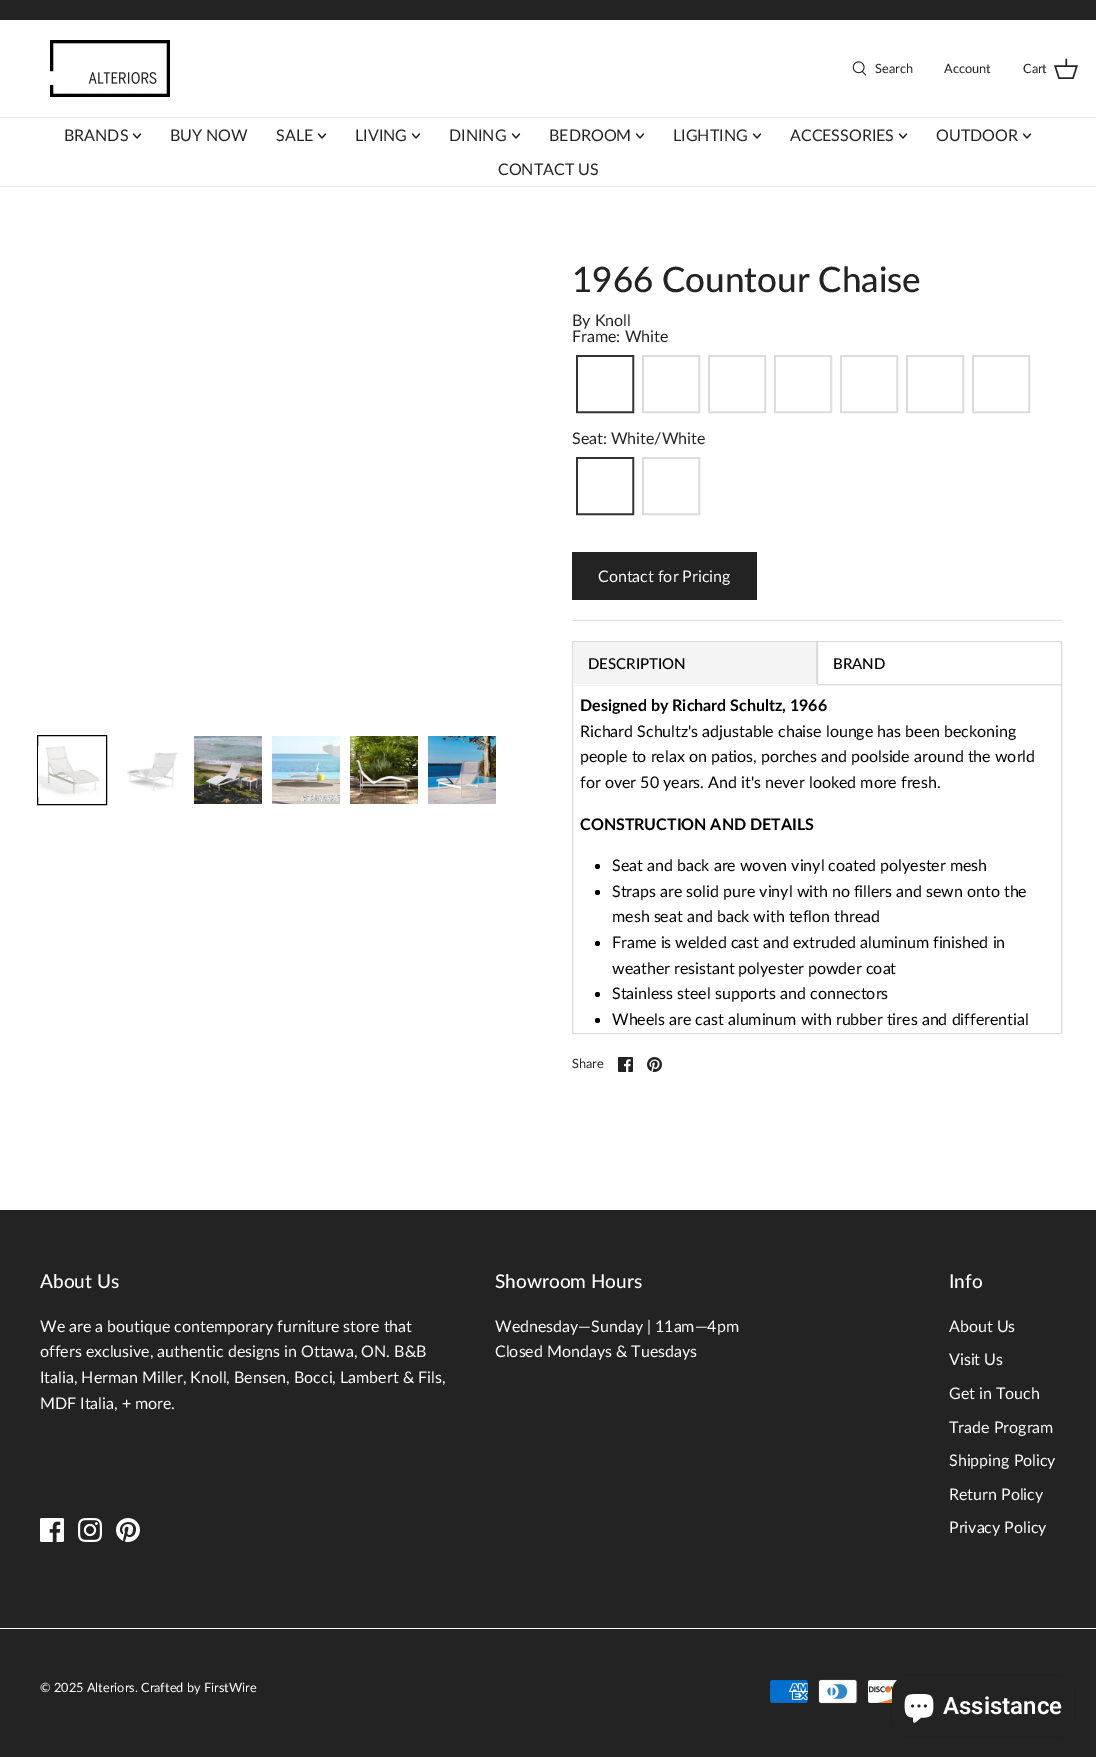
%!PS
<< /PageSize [1096 1757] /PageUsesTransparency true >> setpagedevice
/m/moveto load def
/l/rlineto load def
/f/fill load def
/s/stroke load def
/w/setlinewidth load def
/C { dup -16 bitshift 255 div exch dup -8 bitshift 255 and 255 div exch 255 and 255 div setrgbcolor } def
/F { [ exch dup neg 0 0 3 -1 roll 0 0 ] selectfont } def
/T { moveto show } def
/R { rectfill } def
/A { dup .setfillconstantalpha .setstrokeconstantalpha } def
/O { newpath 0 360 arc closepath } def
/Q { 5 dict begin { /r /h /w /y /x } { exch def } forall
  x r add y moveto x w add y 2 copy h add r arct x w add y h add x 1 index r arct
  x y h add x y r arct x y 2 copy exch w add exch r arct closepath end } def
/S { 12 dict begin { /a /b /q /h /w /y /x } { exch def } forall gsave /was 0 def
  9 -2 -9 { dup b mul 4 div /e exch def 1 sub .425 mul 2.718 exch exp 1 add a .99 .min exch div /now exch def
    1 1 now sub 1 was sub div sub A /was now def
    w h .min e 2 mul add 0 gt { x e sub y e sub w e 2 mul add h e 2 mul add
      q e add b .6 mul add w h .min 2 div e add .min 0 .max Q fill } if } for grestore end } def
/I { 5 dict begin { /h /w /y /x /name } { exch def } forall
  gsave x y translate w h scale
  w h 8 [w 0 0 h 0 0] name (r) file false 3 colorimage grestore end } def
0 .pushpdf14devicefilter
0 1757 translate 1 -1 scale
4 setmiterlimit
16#FFFFFF C
0 0 1096 1757 R
16#232323 C
0 0 1096 20 R
16#EBEAE6 C
0 117 1096 1 R
(1.rgb) 50 40 120 57 I
(2.rgb) 852 61 15 15 I
/Lato-Regular 12.75 F
16#232323 C
(Search) 875 73 T
(Account) 944 73 T
(Cart) 1023 73 T
(3.rgb) 1054 58 24 21 I
16#EBEAE6 C
0 186 1096 1 R
/Lato-Regular 16 F
16#232323 C
(BRANDS) 64 141 T
1.2 w
1 setlinecap
1 setlinejoin
133.5 134 m 3.5 4 l 3.5 -4 l s
(BUY NOW) 170 141 T
(SALE) 276 141 T
318.5 134 m 3.5 4 l 3.5 -4 l s
(LIVING) 355 141 T
412.5 134 m 3.5 4 l 3.5 -4 l s
(DINING) 449 141 T
512.5 134 m 3.5 4 l 3.5 -4 l s
(BEDROOM) 549 141 T
636.5 134 m 3.5 4 l 3.5 -4 l s
(LIGHTING) 673 141 T
753.5 134 m 3.5 4 l 3.5 -4 l s
(ACCESSORIES) 790 141 T
899.5 134 m 3.5 4 l 3.5 -4 l s
(OUTDOOR) 936 141 T
1023.5 134 m 3.5 4 l 3.5 -4 l s
(CONTACT US) 498 175 T
16#000000 C
1 w
0 setlinecap
0 setlinejoin
37.5 735.5 69 69 rectstroke
(4.rgb) 38 746 62 51 I
(5.rgb) 127 752 52 39 I
(6.rgb) 194 736 68 68 I
(7.rgb) 272 736 68 68 I
(8.rgb) 350 736 68 68 I
(9.rgb) 428 736 68 68 I
/Lato-Medium 35 F
16#232323 C
(1966 Countour Chaise) 572 292 T
/Lato-Regular 16 F
(By Knoll) 572 326 T
16#E2E2E2 C
572 620 490 1 R
16#232323 C
(Frame: White) 572 342 T
16#323232 C
3 w
577.5 356.5 55 55 rectstroke
16#FFFFFF C
2 w
579 358 52 52 rectstroke
16#DCDCDC C
3 w
643.5 356.5 55 55 rectstroke
16#FFFFFF C
2 w
645 358 52 52 rectstroke
16#DCDCDC C
3 w
709.5 356.5 55 55 rectstroke
16#FFFFFF C
2 w
711 358 52 52 rectstroke
16#DCDCDC C
3 w
775.5 356.5 55 55 rectstroke
16#FFFFFF C
2 w
777 358 52 52 rectstroke
16#DCDCDC C
3 w
841.5 356.5 55 55 rectstroke
16#FFFFFF C
2 w
843 358 52 52 rectstroke
16#DCDCDC C
3 w
907.5 356.5 55 55 rectstroke
16#FFFFFF C
2 w
909 358 52 52 rectstroke
16#DCDCDC C
3 w
973.5 356.5 55 55 rectstroke
16#FFFFFF C
2 w
975 358 52 52 rectstroke
16#232323 C
(Seat: White/White) 572 444 T
16#323232 C
3 w
577.5 458.5 55 55 rectstroke
16#FFFFFF C
2 w
579 460 52 52 rectstroke
16#DCDCDC C
3 w
643.5 458.5 55 55 rectstroke
16#FFFFFF C
2 w
645 460 52 52 rectstroke
16#232323 C
572 552 185 48 R
16#FFFFFF C
(Contact for Pricing) 598 582 T
16#F4F4F4 C
573 642 243 42 R
16#DCDCDC C
572 641 245 1 R
1 w
572.5 684.5 489 349 .5 Q s
816 641 1 44 R
16#FFFFFF C
572 684 245 1 R
16#DCDCDC C
572 641 1 44 R
/Lato-Medium 15 F
16#000000 C
(DESCRIPTION) 588 669 T
16#DCDCDC C
817.5 641.5 244 43 rectstroke
16#000000 C
(BRAND) 833 669 T
/Lato-Bold 16 F
(Designed by Richard Schultz, 1966) 580 711 T
/Lato-Regular 16 F
(Richard Schultz's adjustable chaise lounge has been beckoning) 580 737 T
(people to relax on patios, porches and poolside around the world) 580 762 T
(for over 50 years. And it's never looked more fresh.) 580 788 T
/Lato-Bold 16 F
(CONSTRUCTION AND DETAILS) 580 830 T
597.5 866.5 2.5 O f
/Lato-Regular 16 F
(Seat and back are woven vinyl coated polyester mesh) 612 871 T
597.5 892.5 2.5 O f
(Straps are solid pure vinyl with no fillers and sewn onto the) 612 897 T
(mesh seat and back with teflon thread) 612 922 T
597.5 943.5 2.5 O f
(Frame is welded cast and extruded aluminum finished in) 612 948 T
(weather resistant polyester powder coat) 612 974 T
597.5 994.5 2.5 O f
(Stainless steel supports and connectors) 612 999 T
597.5 1020.5 2.5 O f
(Wheels are cast aluminum with rubber tires and differential) 612 1025 T
/Lato-Regular 12.75 F
16#232323 C
(Share) 572 1068 T
(10.rgb) 618 1057 15 15 I
(11.rgb) 647 1057 15 15 I
0 1210 1096 547 R
/Lato-Medium 19 F
16#FFFFFF C
(About Us) 40 1288 T
/Lato-Regular 16 F
(We are a boutique contemporary furniture store that) 40 1332 T
(offers exclusive, authentic designs in Ottawa, ON. B&B) 40 1357 T
(Italia, Herman Miller, Knoll, Bensen, Bocci, Lambert & Fils,) 40 1383 T
(MDF Italia, + more.) 40 1409 T
(12.rgb) 40 1518 24 24 I
(13.rgb) 78 1518 24 24 I
(14.rgb) 116 1518 24 24 I
/Lato-Medium 19 F
(Showroom Hours) 495 1288 T
/Lato-Regular 16 F
(Wednesday—Sunday | 11am—4pm) 495 1332 T
(Closed Mondays & Tuesdays) 495 1357 T
/Lato-Medium 19 F
(Info) 949 1288 T
/Lato-Regular 16 F
(About Us) 949 1332 T
(Visit Us) 949 1365 T
(Get in Touch) 949 1399 T
(Trade Program) 949 1433 T
(Shipping Policy) 949 1466 T
(Return Policy) 949 1500 T
(Privacy Policy) 949 1533 T
0 1628 1096 1 R
/Lato-Regular 12.75 F
(© 2025 Alteriors.) 40 1692 T
(Crafted by) 141 1692 T
(FirstWire) 204 1692 T
(15.rgb) 770 1680 38 23 I
(16.rgb) 818 1679 40 25 I
(17.rgb) 868 1680 30 23 I
16#000000 C
892 1676 182 60 16 2.5 .15 S
16#232323 C
892 1676 182 60 16 Q f
(18.rgb) 904 1694 30 29 I
/Roboto-SemiBold 24 F
16#FFFFFF C
(Assistance) 943 1714 T
.poppdf14devicefilter showpage
